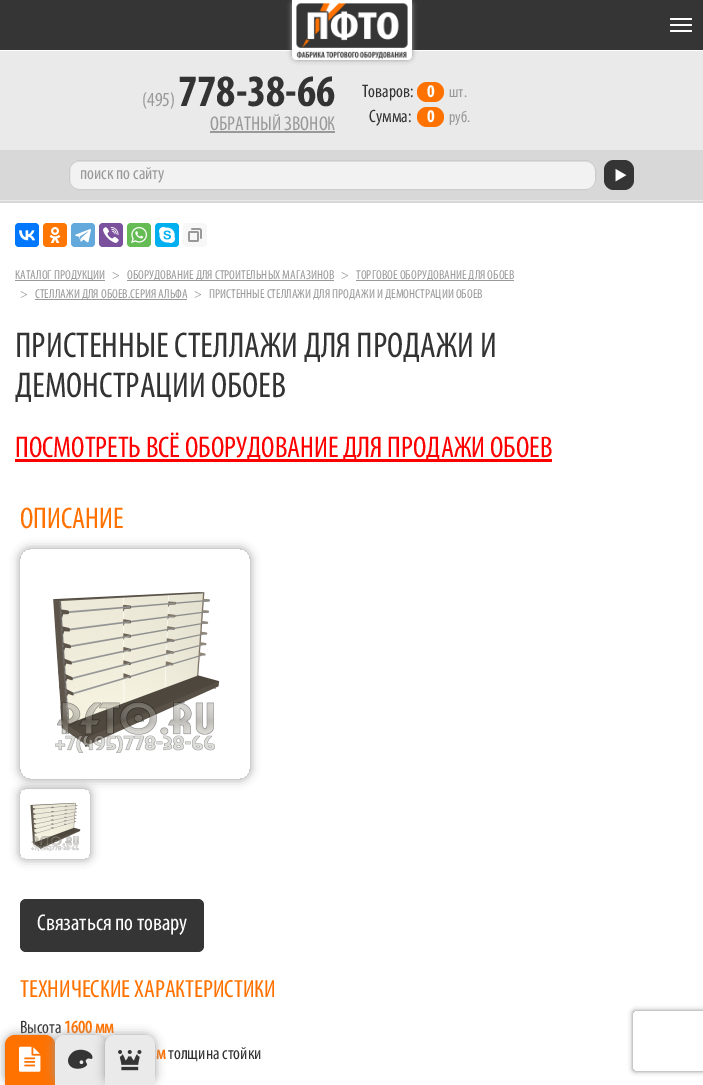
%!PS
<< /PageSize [703 1085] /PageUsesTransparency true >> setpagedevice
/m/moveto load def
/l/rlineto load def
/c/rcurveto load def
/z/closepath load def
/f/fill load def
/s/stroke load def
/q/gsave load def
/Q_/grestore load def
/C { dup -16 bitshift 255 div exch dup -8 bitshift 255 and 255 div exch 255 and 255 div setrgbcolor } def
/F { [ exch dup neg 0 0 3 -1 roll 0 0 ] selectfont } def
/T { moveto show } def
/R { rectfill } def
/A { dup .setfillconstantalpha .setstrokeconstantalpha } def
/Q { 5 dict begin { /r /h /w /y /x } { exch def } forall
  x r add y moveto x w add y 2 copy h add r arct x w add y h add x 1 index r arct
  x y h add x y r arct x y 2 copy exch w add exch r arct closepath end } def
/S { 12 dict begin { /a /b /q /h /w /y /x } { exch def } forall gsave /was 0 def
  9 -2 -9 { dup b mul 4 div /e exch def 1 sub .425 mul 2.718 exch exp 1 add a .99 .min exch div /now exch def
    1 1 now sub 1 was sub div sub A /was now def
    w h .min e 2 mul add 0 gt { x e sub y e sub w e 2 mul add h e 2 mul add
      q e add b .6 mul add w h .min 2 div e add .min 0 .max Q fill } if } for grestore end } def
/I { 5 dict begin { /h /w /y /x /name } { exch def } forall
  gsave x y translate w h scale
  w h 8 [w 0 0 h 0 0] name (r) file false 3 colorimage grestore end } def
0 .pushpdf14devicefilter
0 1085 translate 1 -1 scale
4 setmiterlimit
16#FFFFFF C
0 0 703 1085 R
16#353535 C
0 0 703 50 R
16#FFFFFF C
670 18 22 2 1 Q f
670 24 22 2 1 Q f
670 30 22 2 1 Q f
16#EAEAEA C
0 51 703 150 R
16#D7D7D7 C
0 201 703 2 R
16#999999 C
292 0 120 60 5 2.5 1 S
16#FFFFFF C
292 0 m 120 0 l 0 55 l 0 3 -2 5 -5 5 c -110 0 l -3 0 -5 -2 -5 -5 c z f
(1.rgb) 292 3 120 57 I
/Myriad-Regular 20 F
16#999999 C
(\(495\)) 142 106 T
/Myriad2-Bold 45 F
16#333333 C
(778-38-66) 178 106 T
/Myriad-Regular 20 F
16#999999 C
(ОБРАТНЫЙ ЗВОНОК) 210 130 T
210 131 125 2 R
/Myriad-Regular 18 F
16#333333 C
(Товаров:) 362 97 T
16#FF7200 C
417 82 27 20 10 Q f
/Myriad2-Bold 18 F
16#FFFFFF C
(0) 427 97 T
/Myriad-Regular 16 F
16#999999 C
(шт.) 449 97 T
/Myriad-Regular 18 F
16#333333 C
(Сумма:) 369 122 T
16#FF7200 C
417 107 27 20 10 Q f
/Myriad2-Bold 18 F
16#FFFFFF C
(0) 427 122 T
/Myriad-Regular 16 F
16#999999 C
(руб.) 449 122 T
16#D8D8D8 C
0 150 703 50 R
16#F2F2F2 C
69 160 527 30 10 Q f
16#E0E0E0 C
79 162 m 507 0 l 5 0 9 4 9 9 c 0 -5 -3 -10 -9 -10 c -507 0 l -6 0 -9 5 -9 10 c 0 -5 4 -9 9 -9 c z f
16#CCCCCC C
69.5 160.5 526 29 9.5 Q s
/Myriad-Regular 18 F
16#999999 C
(поиск по сайту) 80 179 T
16#353535 C
604 160 30 30 10 Q f
(2.rgb) 615 169 12 13 I
16#0077FF C
15 223 24 24 4 Q f
(3.rgb) 19 230 16 11 I
16#FF7700 C
43 223 24 24 4 Q f
(4.rgb) 49 227 12 16 I
16#64A9DC C
71 223 24 24 4 Q f
(5.rgb) 75 229 16 14 I
16#7B519D C
99 223 24 24 4 Q f
(6.rgb) 103 227 16 16 I
16#65BC54 C
127 223 24 24 4 Q f
(7.rgb) 131 227 16 16 I
16#00AFF0 C
155 223 24 24 4 Q f
(8.rgb) 159 227 16 16 I
16#F7F7F7 C
183 223 24 24 4 Q f
(9.rgb) 188 228 14 14 I
16#999999 C
15 280 90 1 R
/Myriad-Regular 13 F
(КАТАЛОГ ПРОДУКЦИИ) 15 279 T
(>) 112 279 T
127 280 207 1 R
(ОБОРУДОВАНИЕ ДЛЯ СТРОИТЕЛЬНЫХ МАГАЗИНОВ) 127 279 T
(>) 341 279 T
356 280 158 1 R
(ТОРГОВОЕ ОБОРУДОВАНИЕ ДЛЯ ОБОЕВ) 356 279 T
(>) 20 298 T
35 299 152 1 R
(СТЕЛЛАЖИ ДЛЯ ОБОЕВ.СЕРИЯ АЛЬФА) 35 298 T
(>) 194 298 T
(ПРИСТЕННЫЕ СТЕЛЛАЖИ ДЛЯ ПРОДАЖИ И ДЕМОНСТРАЦИИ ОБОЕВ) 209 298 T
/Myriad-Regular 36 F
16#333333 C
(ПРИСТЕННЫЕ СТЕЛЛАЖИ ДЛЯ ПРОДАЖИ И) 15 357 T
(ДЕМОНСТРАЦИИ ОБОЕВ) 15 397 T
16#FF0000 C
15 459 537 3 R
/Myriad-Regular 30 F
(ПОСМОТРЕТЬ ВСЁ ОБОРУДОВАНИЕ ДЛЯ ПРОДАЖИ ОБОЕВ) 15 457 T
16#FF7200 C
(ОПИСАНИЕ) 20 528 T
q
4 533 m 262 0 l 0 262 l -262 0 l z 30 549 m 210 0 l 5.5 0 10 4.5 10 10 c 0 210 l 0 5.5 -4.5 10 -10 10 c -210 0 l -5.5 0 -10 -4.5 -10 -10 c 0 -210 l 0 -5.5 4.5 -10 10 -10 c z eoclip newpath
16#999999 C
20 549 230 230 10 5 1 S
Q_
(10.rgb) 53 592 167 161 I
q
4 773 m 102 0 l 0 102 l -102 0 l z 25 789 m 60 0 l 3 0 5 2 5 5 c 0 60 l 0 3 -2 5 -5 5 c -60 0 l -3 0 -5 -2 -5 -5 c 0 -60 l 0 -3 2 -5 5 -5 c z eoclip newpath
16#999999 C
20 789 70 70 5 5 1 S
Q_
(11.rgb) 30 802 51 49 I
16#353535 C
20 899 184 53 6 Q f
/Myriad-Regular 23 F
16#FFFFFF C
(Связаться по товару) 37 930 T
/Myriad-Regular 25 F
16#FF7200 C
(ТЕХНИЧЕСКИЕ ХАРАКТЕРИСТИКИ) 20 997 T
/Myriad-Regular 18 F
16#333333 C
(Высота) 20 1033 T
/Myriad-Bold 18 F
16#FF7200 C
(1600 мм) 64 1033 T
(м) 156 1059 T
/Myriad-Regular 18 F
16#333333 C
(толщина стойки) 168 1059 T
16#999999 C
5 1035 50 50 10 5 1 S
16#FF7200 C
15 1035 m 30 0 l 5.5 0 10 4.5 10 10 c 0 40 l -50 0 l 0 -40 l 0 -5.5 4.5 -10 10 -10 c z f
(12.rgb) 19 1046 22 26 I
16#999999 C
55 1035 50 50 10 5 1 S
16#EAEAEA C
65 1035 m 30 0 l 5.5 0 10 4.5 10 10 c 0 40 l -50 0 l 0 -40 l 0 -5.5 4.5 -10 10 -10 c z f
(13.rgb) 68 1049 25 20 I
16#999999 C
105 1035 50 50 10 5 1 S
16#EAEAEA C
115 1035 m 30 0 l 5.5 0 10 4.5 10 10 c 0 40 l -50 0 l 0 -40 l 0 -5.5 4.5 -10 10 -10 c z f
(14.rgb) 118 1050 24 21 I
q
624 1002 m 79 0 l 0 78 l -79 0 l z 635 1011 m 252 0 l 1 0 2 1 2 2 c 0 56 l 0 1 -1 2 -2 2 c -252 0 l -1 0 -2 -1 -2 -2 c 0 -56 l 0 -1 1 -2 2 -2 c z eoclip newpath
16#808080 C
633 1011 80 60 2 2.5 1 S
Q_
.poppdf14devicefilter showpage
